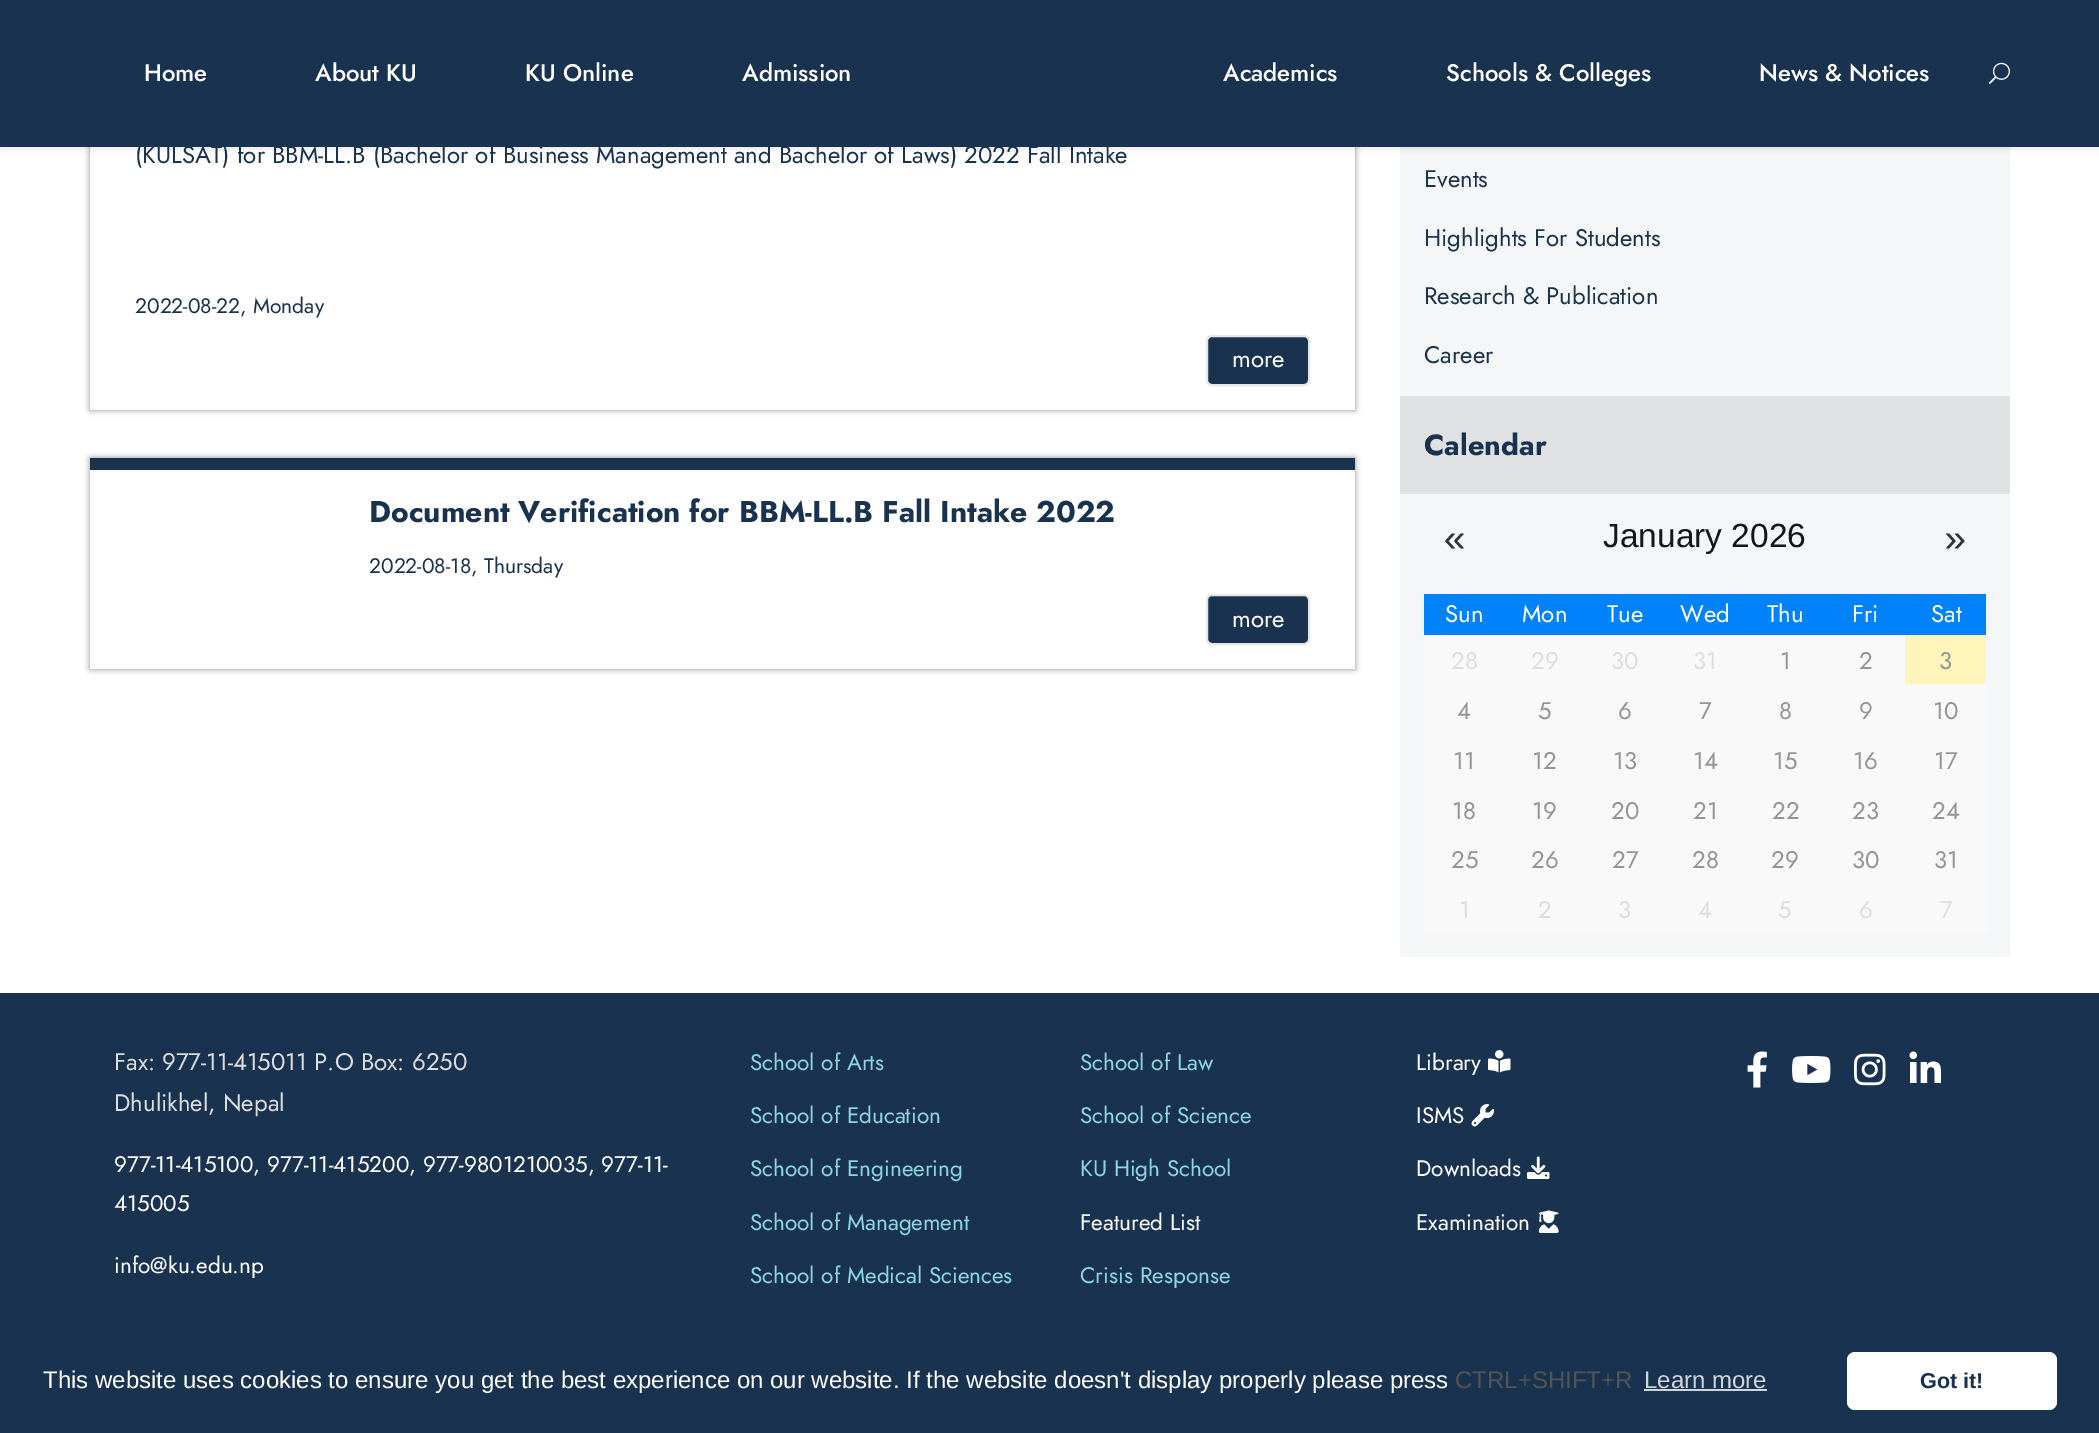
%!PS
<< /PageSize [2099 1433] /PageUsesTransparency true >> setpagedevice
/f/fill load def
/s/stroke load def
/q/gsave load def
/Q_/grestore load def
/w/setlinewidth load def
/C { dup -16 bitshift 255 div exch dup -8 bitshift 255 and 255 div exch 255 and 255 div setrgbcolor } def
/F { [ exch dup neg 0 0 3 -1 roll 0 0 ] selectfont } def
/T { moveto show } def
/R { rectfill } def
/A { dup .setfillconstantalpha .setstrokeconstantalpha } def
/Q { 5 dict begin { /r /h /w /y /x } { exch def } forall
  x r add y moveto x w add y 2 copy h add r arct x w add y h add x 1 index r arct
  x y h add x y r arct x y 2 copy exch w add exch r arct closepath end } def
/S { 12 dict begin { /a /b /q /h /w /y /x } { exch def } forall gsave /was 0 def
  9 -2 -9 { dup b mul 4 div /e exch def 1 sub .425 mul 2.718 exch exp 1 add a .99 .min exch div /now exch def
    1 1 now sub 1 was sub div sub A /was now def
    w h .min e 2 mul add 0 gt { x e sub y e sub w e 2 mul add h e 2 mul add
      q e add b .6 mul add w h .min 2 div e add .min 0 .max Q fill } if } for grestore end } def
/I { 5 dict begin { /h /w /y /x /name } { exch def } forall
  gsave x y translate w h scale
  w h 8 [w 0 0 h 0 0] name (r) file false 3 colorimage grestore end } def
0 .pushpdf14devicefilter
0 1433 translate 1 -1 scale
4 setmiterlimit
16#FFFFFF C
0 0 2099 1433 R
16#888787 C
90 27 1265 383 0 3 1 S
16#FFFFFF C
90 147 1265 263 R
16#F4F6F7 C
1400 147 610 810 R
16#000000 C
0 2 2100 147 0 3 .1 S
16#193250 C
0 0 2099 147 R
/Jost-Medium 24 F
16#FFFFFF C
(Home) 144 81 T
(About KU) 315 81 T
(KU Online) 525 81 T
(Admission) 742 81 T
(Academics) 1223 81 T
(Schools & Colleges) 1446 81 T
(News & Notices) 1759 81 T
(1.rgb) 1989 62 21 22 I
/Jost-Regular 24 F
16#193250 C
(\(KULSAT\) for BBM-LL.B \(Bachelor of Business Management and Bachelor of Laws\) 2022 Fall Intake) 135 163 T
/Jost-Regular 21 F
(2022-08-22, Monday) 135 313 T
1207 336 102 49 5 Q q f Q_
16#E6E6E6 C
2 w
s
/Jost-Regular 24 F
16#FFFFFF C
(more) 1232 367 T
16#888787 C
90 458 1265 211 0 3 1 S
16#FFFFFF C
90 470 1265 199 R
16#193250 C
90 458 1265 12 R
/Jost-Bold 30 F
(Document Verification for BBM-LL.B Fall Intake 2022) 369 522 T
/Jost-Regular 21 F
(2022-08-18, Thursday) 369 573 T
1207 595 102 49 5 Q q f Q_
16#E6E6E6 C
s
/Jost-Regular 24 F
16#FFFFFF C
(more) 1232 627 T
16#193250 C
(Events) 1424 187 T
(Highlights For Students) 1424 246 T
(Research & Publication) 1424 304 T
(Career) 1424 363 T
16#E0E1E3 C
1400 396 610 98 R
/Jost-Bold 29 F
16#193250 C
(Calendar) 1424 455 T
/LiberationMono-Regular 38 F
16#333333 C
(«) 1443 551 T
/LiberationSans-Regular 33.5 F
16#161616 C
(January 2026) 1603 547 T
/LiberationMono-Regular 38 F
16#333333 C
(») 1944 551 T
16#0082FA C
1424 594 562 41 R
/Jost-Regular 24 F
16#FFFFFF C
(Sun) 1445 622 T
(Mon) 1522 622 T
(Tue) 1607 622 T
(Wed) 1680 622 T
(Thu) 1767 622 T
(Fri) 1852 622 T
(Sat) 1931 622 T
16#F9F9F9 C
1424 681 562 252 R
16#FFF4B9 C
1905 635 81 49 R
16#F9F9F9 C
1424 635 481 46 R
16#DDDDDD C
(28) 1451 669 T
(29) 1531 669 T
(30) 1611 669 T
(31) 1693 669 T
16#949494 C
(1) 1780 669 T
(2) 1859 669 T
(3) 1939 669 T
(4) 1457 719 T
(5) 1538 719 T
(6) 1618 719 T
(7) 1699 719 T
(8) 1779 719 T
(9) 1859 719 T
(10) 1933 719 T
(11) 1453 769 T
(12) 1532 769 T
(13) 1613 769 T
(14) 1693 769 T
(15) 1773 769 T
(16) 1853 769 T
(17) 1934 769 T
(18) 1452 819 T
(19) 1532 819 T
(20) 1611 819 T
(21) 1693 819 T
(22) 1772 819 T
(23) 1852 819 T
(24) 1932 819 T
(25) 1451 868 T
(26) 1531 868 T
(27) 1612 868 T
(28) 1692 868 T
(29) 1771 868 T
(30) 1852 868 T
(31) 1934 868 T
16#DDDDDD C
(1) 1459 918 T
(2) 1538 918 T
(3) 1618 918 T
(4) 1698 918 T
(5) 1778 918 T
(6) 1859 918 T
(7) 1940 918 T
16#193250 C
0 993 2099 440 R
16#DDDDDD C
(Fax: 977-11-415011 P.O Box: 6250) 114 1070 T
(Dhulikhel, Nepal) 114 1111 T
/Jost-Regular 22.5 F
16#FFFFFF C
(977-11-415100, 977-11-415200, 977-9801210035, 977-11-) 114 1172 T
(415005) 114 1211 T
(info@ku.edu.np) 114 1273 T
16#8DD7E5 C
(School of Arts) 750 1070 T
(School of Education) 750 1123 T
(School of Engineering) 750 1176 T
(School of Management) 750 1230 T
(School of Medical Sciences) 750 1283 T
(School of Law) 1080 1070 T
(School of Science) 1080 1123 T
(KU High School) 1080 1176 T
16#FFFFFF C
(Featured List) 1080 1230 T
16#8DD7E5 C
(Crisis Response) 1080 1283 T
16#FFFFFF C
(Library) 1416 1070 T
(2.rgb) 1488 1050 23 23 I
(ISMS) 1416 1123 T
(3.rgb) 1471 1104 23 23 I
(Downloads) 1416 1176 T
(4.rgb) 1527 1156 23 23 I
(Examination) 1416 1230 T
(5.rgb) 1538 1210 21 23 I
(6.rgb) 1747 1051 20 37 I
(7.rgb) 1792 1056 39 27 I
(8.rgb) 1854 1053 32 33 I
(9.rgb) 1909 1051 32 32 I
/LiberationSans-Regular 24 F
(This website uses cookies to ensure you get the best experience on our website. If the website doesn't display properly please press) 43 1388 T
16#545454 C
(CTRL+SHIFT+R) 1455 1388 T
16#D1D6DC C
(Learn more) 1644 1388 T
1644 1389 123 2 R
16#FFFFFF C
1847 1352 210 58 8 Q f
/LiberationSans-Bold 21.5 F
16#193250 C
(Got it!) 1920 1388 T
.poppdf14devicefilter showpage
